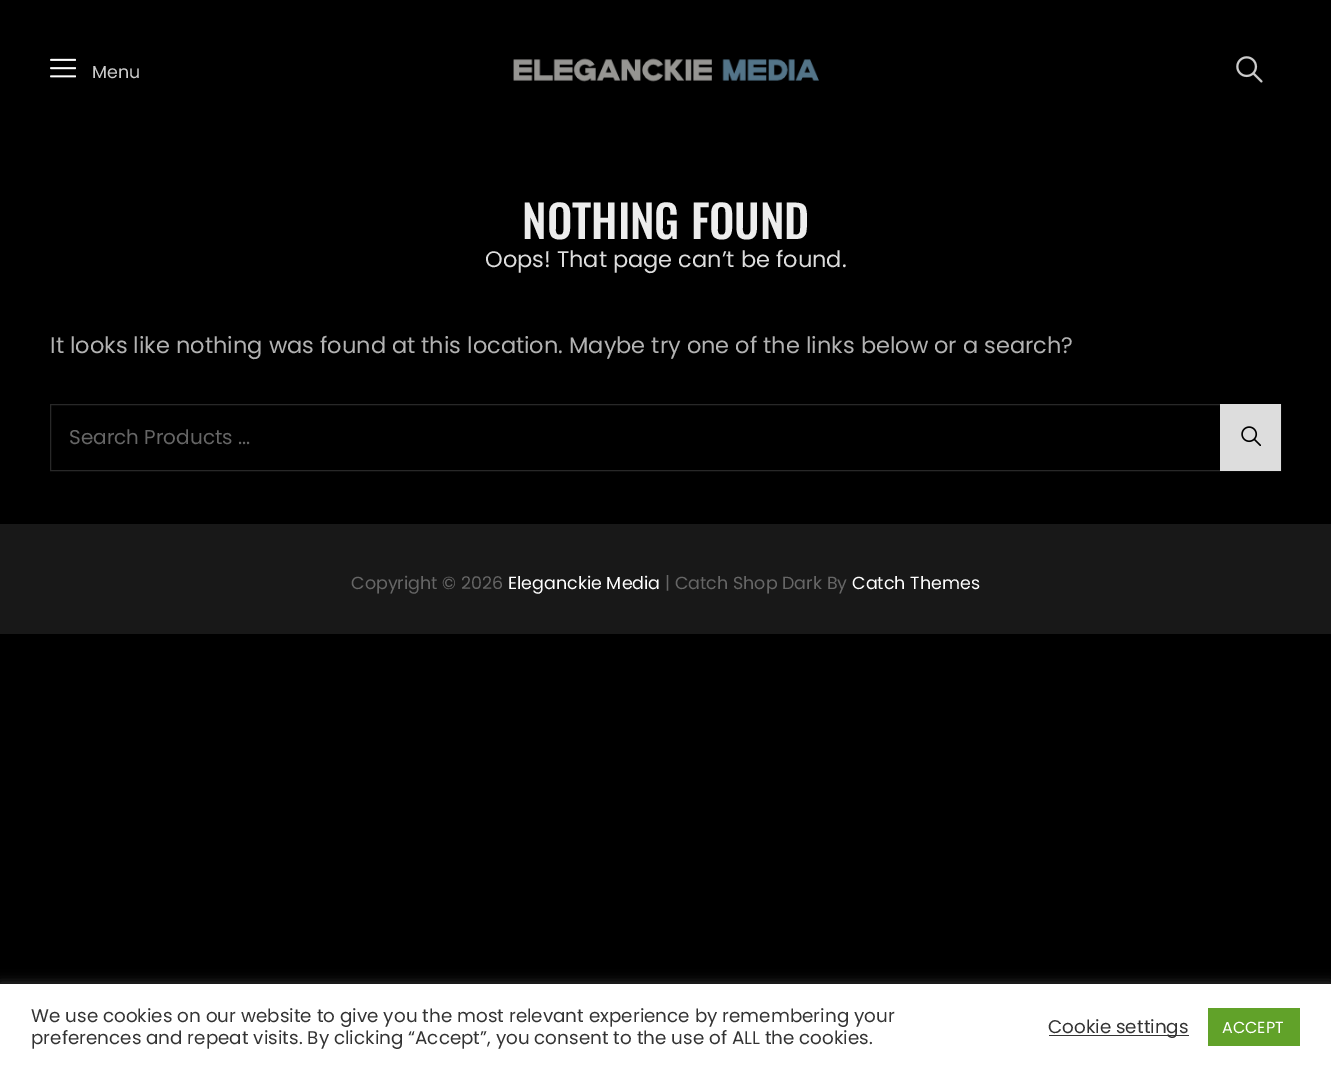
%!PS
<< /PageSize [1331 1070] /PageUsesTransparency true >> setpagedevice
/C { dup -16 bitshift 255 div exch dup -8 bitshift 255 and 255 div exch 255 and 255 div setrgbcolor } def
/F { [ exch dup neg 0 0 3 -1 roll 0 0 ] selectfont } def
/T { moveto show } def
/R { rectfill } def
/A { dup .setfillconstantalpha .setstrokeconstantalpha } def
/Q { 5 dict begin { /r /h /w /y /x } { exch def } forall
  x r add y moveto x w add y 2 copy h add r arct x w add y h add x 1 index r arct
  x y h add x y r arct x y 2 copy exch w add exch r arct closepath end } def
/S { 12 dict begin { /a /b /q /h /w /y /x } { exch def } forall gsave /was 0 def
  9 -2 -9 { dup b mul 4 div /e exch def 1 sub .425 mul 2.718 exch exp 1 add a .99 .min exch div /now exch def
    1 1 now sub 1 was sub div sub A /was now def
    w h .min e 2 mul add 0 gt { x e sub y e sub w e 2 mul add h e 2 mul add
      q e add b .6 mul add w h .min 2 div e add .min 0 .max Q fill } if } for grestore end } def
/I { 5 dict begin { /h /w /y /x /name } { exch def } forall
  gsave x y translate w h scale
  w h 8 [w 0 0 h 0 0] name (r) file false 3 colorimage grestore end } def
0 .pushpdf14devicefilter
0 1070 translate 1 -1 scale
4 setmiterlimit
16#000000 C
0 0 1331 1070 R
(1.rgb) 50 58 26 20 I
/Poppins-Regular 17.5 F
16#CCCCCC C
(Menu) 92 78 T
(2.rgb) 513 58 306 24 I
(3.rgb) 1236 56 27 27 I
/Oswald-Medium 45 F
16#EDEDED C
(NOTHING FOUND) 522 239 T
/Poppins-Regular 22.5 F
16#DDDDDD C
(Oops! That page can’t be found.) 485 267 T
16#B2B2B2 C
(It looks like nothing was found at this location. Maybe try one of the links below or a search?) 50 353 T
16#282828 C
50.5 404.5 1230 66 rectstroke
/Poppins-Regular 20 F
16#666666 C
(Search Products ...) 69 444 T
16#DDDDDD C
1220 404 61 67 R
(4.rgb) 1241 426 20 20 I
16#181818 C
0 524 1331 110 R
/Poppins-Regular 17.5 F
16#666666 C
(Copyright © 2026) 351 589 T
16#FFFFFF C
(Eleganckie Media) 508 589 T
16#666666 C
(| Catch Shop Dark By) 665 589 T
16#FFFFFF C
(Catch Themes) 852 589 T
16#ACABAB C
0 983 1331 86 0 6 .3 S
16#FFFFFF C
0 984 1331 86 R
/Poppins-Regular 18.35 F
16#333333 C
(We use cookies on our website to give you the most relevant experience by remembering your) 31 1022 T
(preferences and repeat visits. By clicking “Accept”, you consent to the use of ALL the cookies.) 31 1044 T
1049 1035 140 1 R
(Cookie settings) 1048 1033 T
16#61A229 C
1208 1008 92 38 R
/Poppins-Regular 16 F
16#FFFFFF C
(ACCEPT) 1222 1033 T
.poppdf14devicefilter showpage
